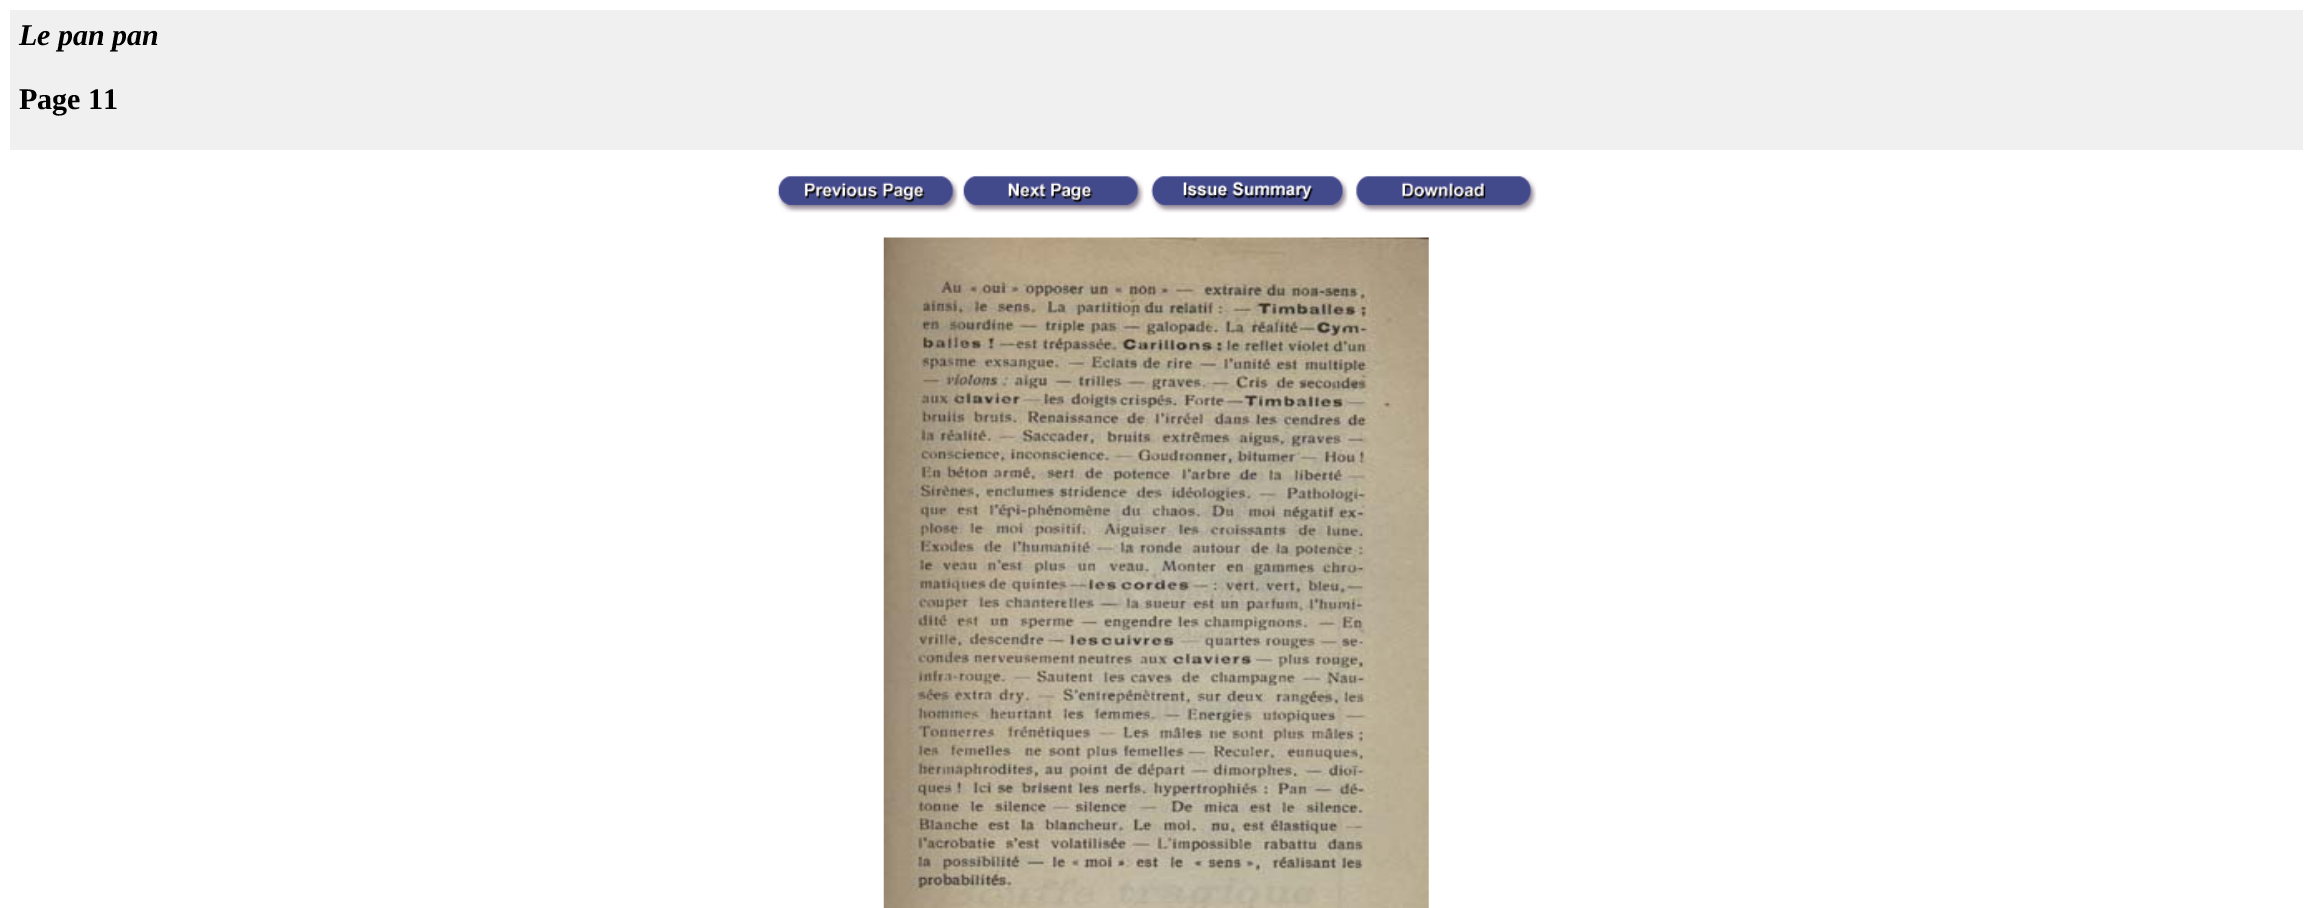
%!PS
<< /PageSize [2312 908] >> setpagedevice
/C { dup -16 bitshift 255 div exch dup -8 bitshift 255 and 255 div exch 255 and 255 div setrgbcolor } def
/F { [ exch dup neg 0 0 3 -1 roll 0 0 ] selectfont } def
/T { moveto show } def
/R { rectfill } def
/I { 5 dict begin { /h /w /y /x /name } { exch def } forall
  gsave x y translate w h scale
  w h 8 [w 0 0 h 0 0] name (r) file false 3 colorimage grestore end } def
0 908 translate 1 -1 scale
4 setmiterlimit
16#FFFFFF C
0 0 2312 908 R
16#F0F0F0 C
10 10 2293 140 R
/LiberationSerif-BoldItalic 30 F
16#000000 C
(Le pan pan) 19 45 T
/LiberationSerif-Bold 30 F
(Page 11) 19 109 T
(1.rgb) 777 175 181 38 I
(2.rgb) 962 175 182 38 I
(3.rgb) 1150 175 198 38 I
(4.rgb) 1355 175 182 38 I
(5.rgb) 883 237 546 671 I
showpage
